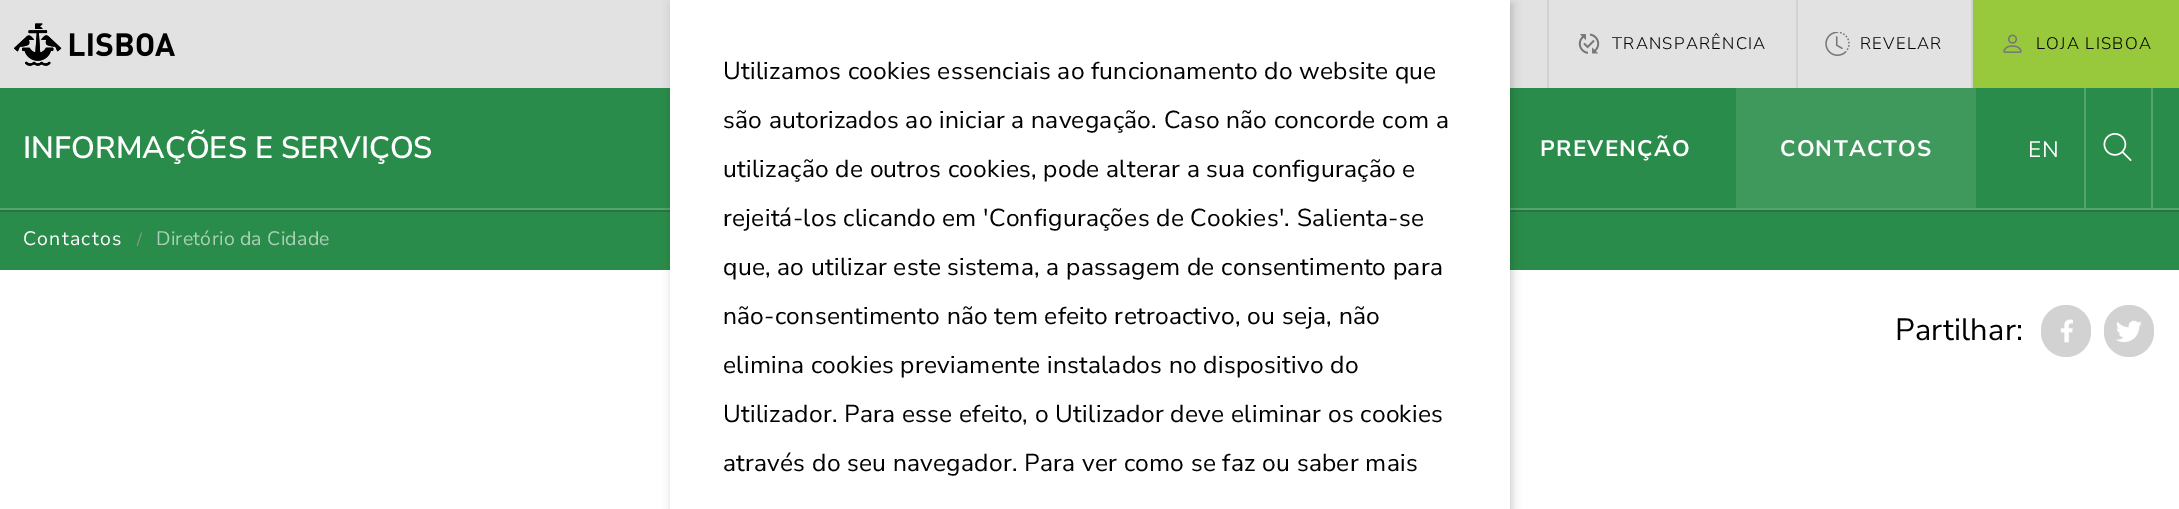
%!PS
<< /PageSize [2179 509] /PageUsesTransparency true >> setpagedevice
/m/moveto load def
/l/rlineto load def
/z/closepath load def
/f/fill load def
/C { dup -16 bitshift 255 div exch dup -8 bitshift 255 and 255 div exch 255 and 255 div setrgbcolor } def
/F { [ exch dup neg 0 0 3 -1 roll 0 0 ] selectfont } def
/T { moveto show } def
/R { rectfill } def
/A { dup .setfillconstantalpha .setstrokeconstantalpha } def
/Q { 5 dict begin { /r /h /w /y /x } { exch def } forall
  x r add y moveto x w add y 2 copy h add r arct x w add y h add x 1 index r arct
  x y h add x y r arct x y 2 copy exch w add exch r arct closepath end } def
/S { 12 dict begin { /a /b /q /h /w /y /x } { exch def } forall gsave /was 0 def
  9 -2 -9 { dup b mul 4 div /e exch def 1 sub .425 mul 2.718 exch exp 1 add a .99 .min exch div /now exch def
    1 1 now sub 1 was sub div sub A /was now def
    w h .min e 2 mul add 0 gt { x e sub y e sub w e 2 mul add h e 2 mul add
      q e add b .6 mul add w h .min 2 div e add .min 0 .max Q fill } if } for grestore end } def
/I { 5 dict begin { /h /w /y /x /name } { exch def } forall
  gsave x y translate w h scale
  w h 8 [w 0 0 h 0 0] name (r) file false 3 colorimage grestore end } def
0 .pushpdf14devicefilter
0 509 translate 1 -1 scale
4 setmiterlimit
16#FFFFFF C
0 0 2179 509 R
16#E2E2E2 C
0 0 1971 88 R
(1.rgb) 14 23 161 43 I
16#D2D2D2 C
1547 0 2 88 R
(2.rgb) 1578 33 22 21 I
/NunitoSans-ExtraLight 16.75 F
16#000000 C
1612 49 m 1.25 0 (TRANSPARÊNCIA) ashow
16#D2D2D2 C
1796 0 2 88 R
(3.rgb) 1825 32 25 24 I
16#000000 C
1860 49 m 1.25 0 (REVELAR) ashow
16#98C93C C
1973 0 206 88 R
16#D2D2D2 C
1971 0 2 88 R
(4.rgb) 2003 34 19 19 I
16#000000 C
2036 49 m 1.25 0 (LOJA LISBOA) ashow
16#24773F C
0 210 m 0 2 l 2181 0 l 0 -123 l -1 0 l 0 121 l z f
16#2A8C4A C
0 88 2179 120 R
16#55A36E C
0 208 2179 2 R
/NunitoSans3-ExtraLight 30.75 F
16#FFFFFF C
(INFORMAÇÕES E SERVIÇOS) 23 158 T
/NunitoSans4-ExtraLight 22.5 F
1540 156 m 1.25 0 (PREVENÇÃO) ashow
16#3F985C C
1736 88 240 120 R
16#FFFFFF C
1780 156 m 1.25 0 (CONTACTOS) ashow
/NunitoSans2-ExtraLight 22.5 F
2028 157 m 1.25 0 (EN) ashow
16#55A36E C
2151 88 2 120 R
2084 88 2 120 R
(5.rgb) 2103 133 29 28 I
16#2A8C4A C
0 212 2179 58 R
/NunitoSans2-ExtraLight 19.5 F
16#FFFFFF C
23 245 m 1.25 0 (Contactos) ashow
/NunitoSans2-ExtraLight 16.75 F
16#939393 C
137 245 m .25 0 (/) ashow
/NunitoSans2-ExtraLight 19.5 F
16#AAD1B7 C
156 245 m .25 0 (Diretório da Cidade) ashow
/NunitoSans2-ExtraLight 30.75 F
16#000000 C
1895 340 m .25 0 (Partilhar:) ashow
16#D2D2D2 C
2041 305 50 52 25 Q f
(6.rgb) 2060 319 13 24 I
2104 305 50 52 25 Q f
(7.rgb) 2116 320 26 22 I
16#000000 C
672 4 840 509 0 4.5 .2 S
16#FFFFFF C
670 0 840 509 R
/NunitoSans2-ExtraLight 24.5 F
16#000000 C
723 79 m .25 0 (Utilizamos cookies essenciais ao funcionamento do website que) ashow
723 128 m .25 0 (são autorizados ao iniciar a navegação. Caso não concorde com a) ashow
723 177 m .25 0 (utilização de outros cookies, pode alterar a sua configuração e) ashow
723 226 m .25 0 (rejeitá-los clicando em 'Configurações de Cookies'. Salienta-se) ashow
723 275 m .25 0 (que, ao utilizar este sistema, a passagem de consentimento para) ashow
723 324 m .25 0 (não-consentimento não tem efeito retroactivo, ou seja, não) ashow
723 373 m .25 0 (elimina cookies previamente instalados no dispositivo do) ashow
723 422 m .25 0 (Utilizador. Para esse efeito, o Utilizador deve eliminar os cookies) ashow
723 471 m .25 0 (através do seu navegador. Para ver como se faz ou saber mais) ashow
.poppdf14devicefilter showpage
